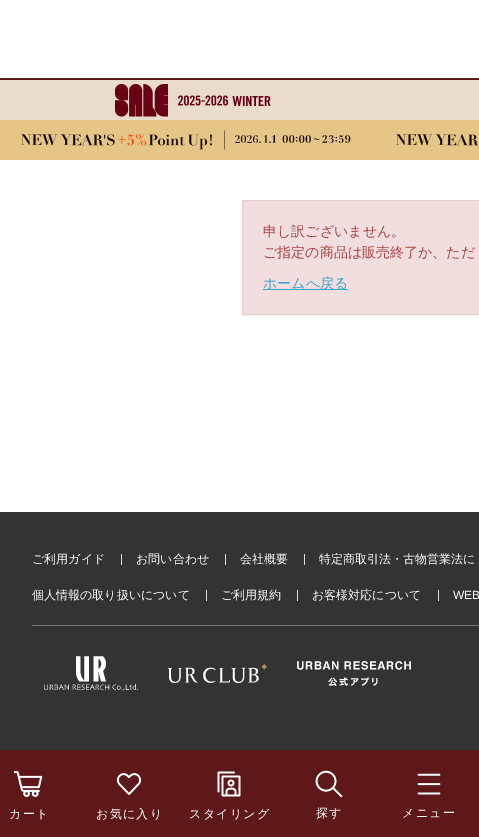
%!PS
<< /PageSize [479 837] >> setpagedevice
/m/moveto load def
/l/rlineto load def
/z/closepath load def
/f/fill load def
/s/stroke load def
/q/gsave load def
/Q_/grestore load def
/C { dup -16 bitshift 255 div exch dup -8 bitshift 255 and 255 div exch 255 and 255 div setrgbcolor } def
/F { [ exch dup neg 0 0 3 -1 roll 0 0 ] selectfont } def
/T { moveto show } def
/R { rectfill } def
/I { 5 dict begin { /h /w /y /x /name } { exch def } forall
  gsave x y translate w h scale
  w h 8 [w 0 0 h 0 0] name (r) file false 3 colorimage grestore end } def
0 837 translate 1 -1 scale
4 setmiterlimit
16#FFFFFF C
0 0 479 837 R
16#5E181A C
0 78 479 2 R
(1.rgb) 0 80 479 40 I
(2.rgb) 0 120 479 40 I
16#F2DEDE C
242.5 200.5 m 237 0 l 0 114 l -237 0 l z q f Q_
16#EBCCD1 C
s
/WenQuanYiZenHei-Medium 14 F
16#A94442 C
(申し訳ございません。) 263 236 T
(ご指定の商品は販売終了か、ただ) 263 257 T
16#37A5CC C
263 289 85 1 R
(ホームへ戻る) 263 288 T
16#333333 C
0 512 479 238 R
16#747474 C
32 625 447 1 R
/WenQuanYiZenHei-Medium 12 F
16#FFFFFF C
(ご利用ガイド) 32 563 T
16#DCDCDC C
121 554 1 11 R
16#FFFFFF C
(お問い合わせ) 136 563 T
16#DCDCDC C
225 554 1 11 R
16#FFFFFF C
(会社概要) 240 563 T
16#DCDCDC C
304 554 1 11 R
16#FFFFFF C
(特定商取引法・古物営業法に) 319 563 T
(個人情報の取り扱いについて) 32 599 T
16#DCDCDC C
206 590 1 11 R
16#FFFFFF C
(ご利用規約) 221 599 T
16#DCDCDC C
297 590 1 11 R
16#FFFFFF C
(お客様対応について) 312 599 T
16#DCDCDC C
438 590 1 11 R
/LiberationSans-Regular 12 F
16#FFFFFF C
(WEB) 453 599 T
(3.rgb) 44 656 94 35 I
(4.rgb) 168 664 99 19 I
(5.rgb) 297 661 114 25 I
16#5E181A C
0 750 479 87 R
(6.rgb) 13 771 30 26 I
/WenQuanYiZenHei-Medium 12 F
16#FFFFFF C
9 818 m 1.25 0 (カート) ashow
(7.rgb) 116 773 26 22 I
96 818 m 1.25 0 (お気に入り) ashow
(8.rgb) 217 771 24 26 I
189 818 m 1.25 0 (スタイリング) ashow
(9.rgb) 315 770 28 28 I
316 817 m 1.25 0 (探す) ashow
(10.rgb) 417 773 24 22 I
402 817 m 1.25 0 (メニュー) ashow
showpage
